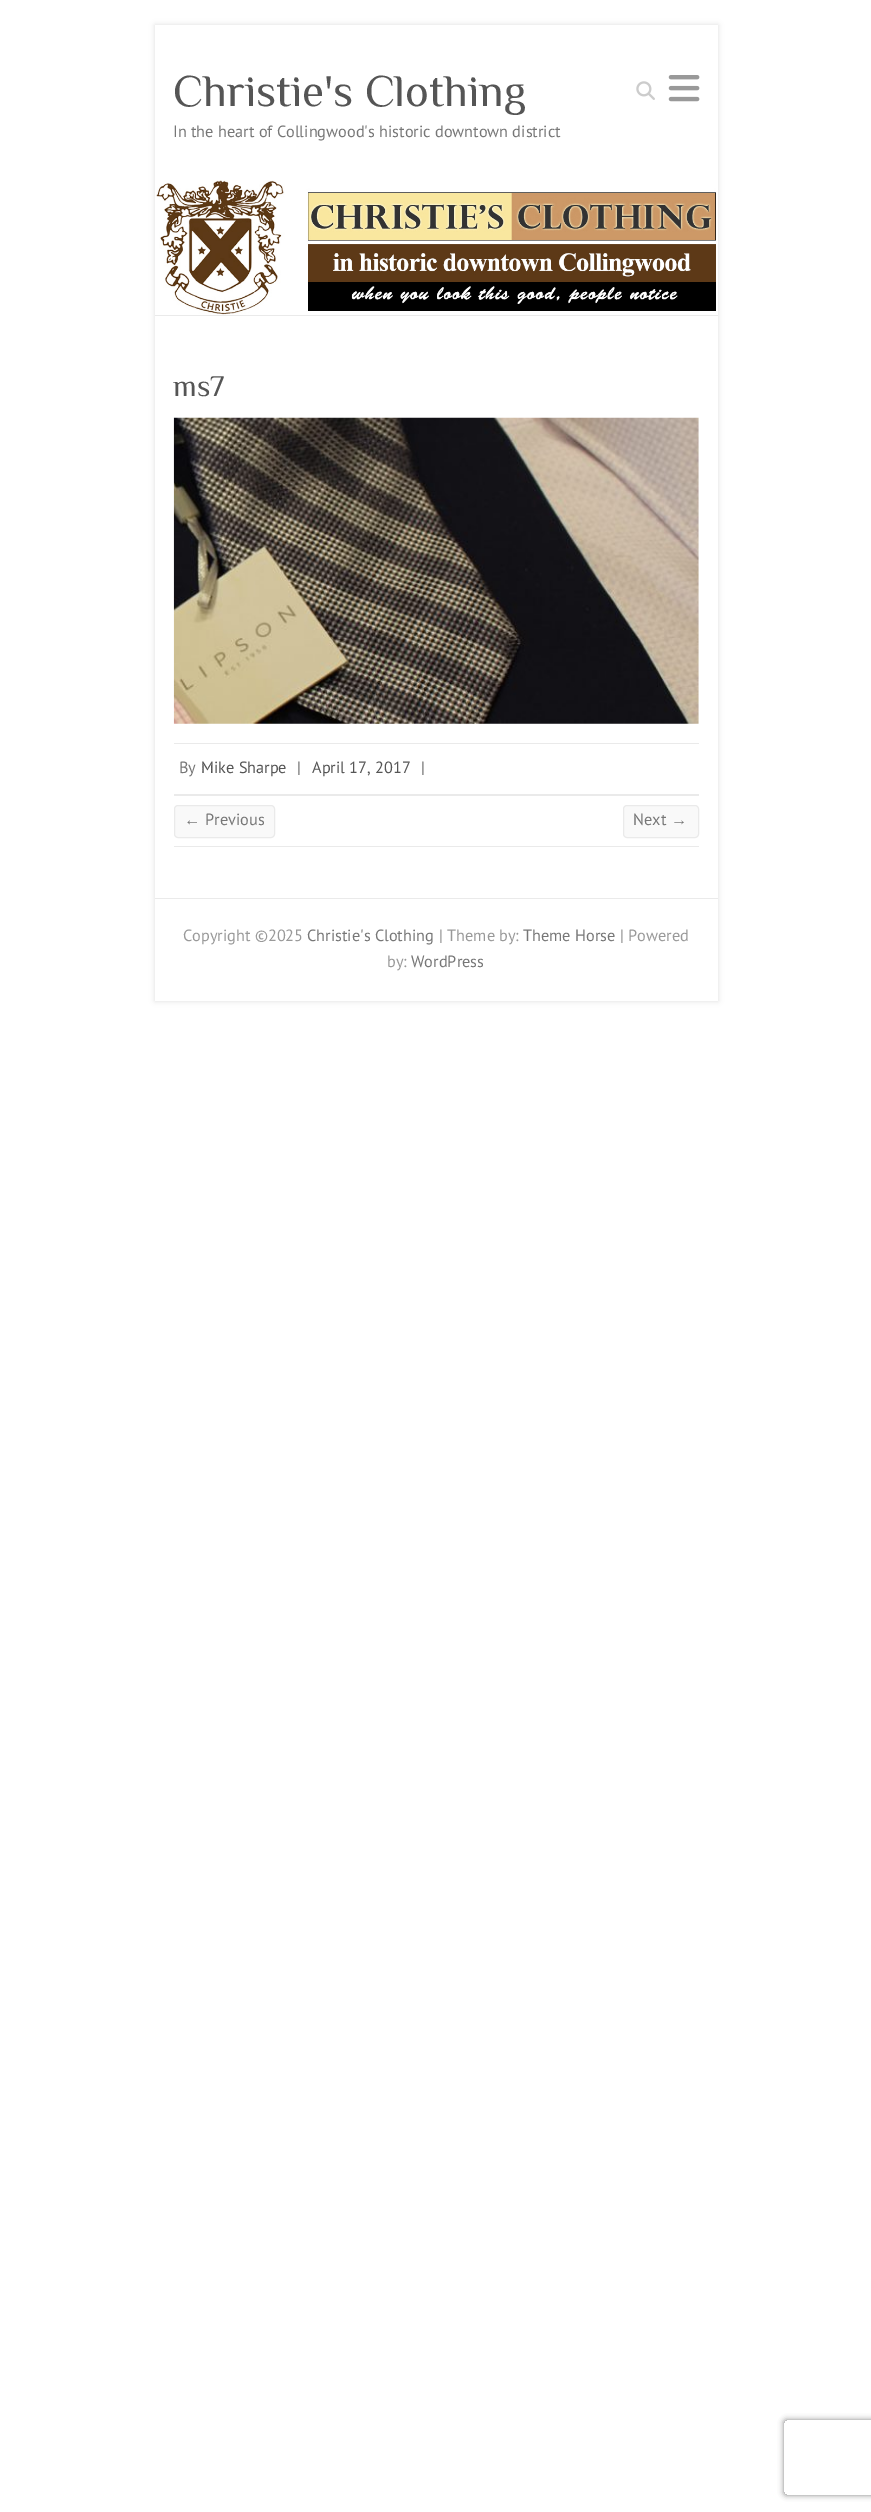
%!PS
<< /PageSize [871 2512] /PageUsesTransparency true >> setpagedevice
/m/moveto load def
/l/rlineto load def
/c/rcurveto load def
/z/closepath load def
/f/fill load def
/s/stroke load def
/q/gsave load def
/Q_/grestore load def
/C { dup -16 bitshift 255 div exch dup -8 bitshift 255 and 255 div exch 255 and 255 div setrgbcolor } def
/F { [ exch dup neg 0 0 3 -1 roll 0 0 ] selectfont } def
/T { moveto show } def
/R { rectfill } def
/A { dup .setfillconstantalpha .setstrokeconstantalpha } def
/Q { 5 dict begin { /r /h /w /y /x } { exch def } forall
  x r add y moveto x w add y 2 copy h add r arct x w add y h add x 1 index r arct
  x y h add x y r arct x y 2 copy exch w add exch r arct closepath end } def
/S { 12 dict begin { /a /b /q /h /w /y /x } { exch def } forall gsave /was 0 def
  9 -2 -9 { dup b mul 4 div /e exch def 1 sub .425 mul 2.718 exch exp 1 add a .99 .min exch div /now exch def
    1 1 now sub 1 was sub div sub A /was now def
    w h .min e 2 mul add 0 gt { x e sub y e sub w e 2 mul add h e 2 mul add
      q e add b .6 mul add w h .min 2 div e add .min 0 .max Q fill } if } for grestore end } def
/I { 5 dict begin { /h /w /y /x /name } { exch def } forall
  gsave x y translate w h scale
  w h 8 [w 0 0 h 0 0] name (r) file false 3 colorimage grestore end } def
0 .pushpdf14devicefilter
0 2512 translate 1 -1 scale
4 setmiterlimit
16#FFFFFF C
0 0 871 2512 R
16#DDDDDD C
155 25 563 976 0 3 1 S
16#FFFFFF C
155 25 563 976 R
/Philosopher-Regular 45 F
16#555555 C
(Christie's Clothing) 173 106 T
/PTSans-Regular 16.25 F
16#777777 C
(In the heart of Collingwood's historic downtown district) 173 137 T
(1.rgb) 636 81 19 19 I
(2.rgb) 668 75 32 27 I
(3.rgb) 156 180 560 135 I
16#EAEAEA C
155 315 563 1 R
/Philosopher-Regular 30 F
16#555555 C
(ms7) 173 396 T
(4.rgb) 173 417 526 307 I
16#EAEAEA C
174 743 525 1 R
174 794 525 2 R
/PTSans-Regular 16.25 F
16#777777 C
(By) 179 773 T
16#555555 C
(Mike Sharpe) 201 773 T
16#777777 C
(|) 297 773 T
16#555555 C
(April 17, 2017) 312 773 T
16#777777 C
(|) 421 773 T
16#EAEAEA C
174 846 525 1 R
16#F9F9F9 C
174.5 805.5 100 32 3.5 Q q f Q_
16#EAEAEA C
s
/LiberationSans-Regular 16.25 F
16#777777 C
(←) 184 825 T
/PTSans-Regular 16.25 F
(Previous) 205 825 T
16#F9F9F9 C
623.5 805.5 75 32 3.5 Q q f Q_
16#EAEAEA C
s
16#777777 C
(Next) 633 825 T
/LiberationSans-Regular 16.25 F
(→) 671 825 T
16#EAEAEA C
155 898 563 1 R
/PTSans-Regular 16.25 F
16#999999 C
(Copyright ©2025) 183 941 T
16#777777 C
(Christie's Clothing) 307 941 T
16#999999 C
(| Theme by:) 439 941 T
16#777777 C
(Theme Horse) 523 941 T
16#999999 C
(| Powered) 620 941 T
(by:) 387 967 T
16#777777 C
(WordPress) 411 967 T
q
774 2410 m 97 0 l 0 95 l -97 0 l z 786.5 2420 m 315 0 l 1.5 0 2.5 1 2.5 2.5 c 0 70 l 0 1.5 -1 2.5 -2.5 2.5 c -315 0 l -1.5 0 -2.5 -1 -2.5 -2.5 c 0 -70 l 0 -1.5 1 -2.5 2.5 -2.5 c z eoclip newpath
16#808080 C
784 2420 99 75 2.5 3 1 S
Q_
.poppdf14devicefilter showpage
